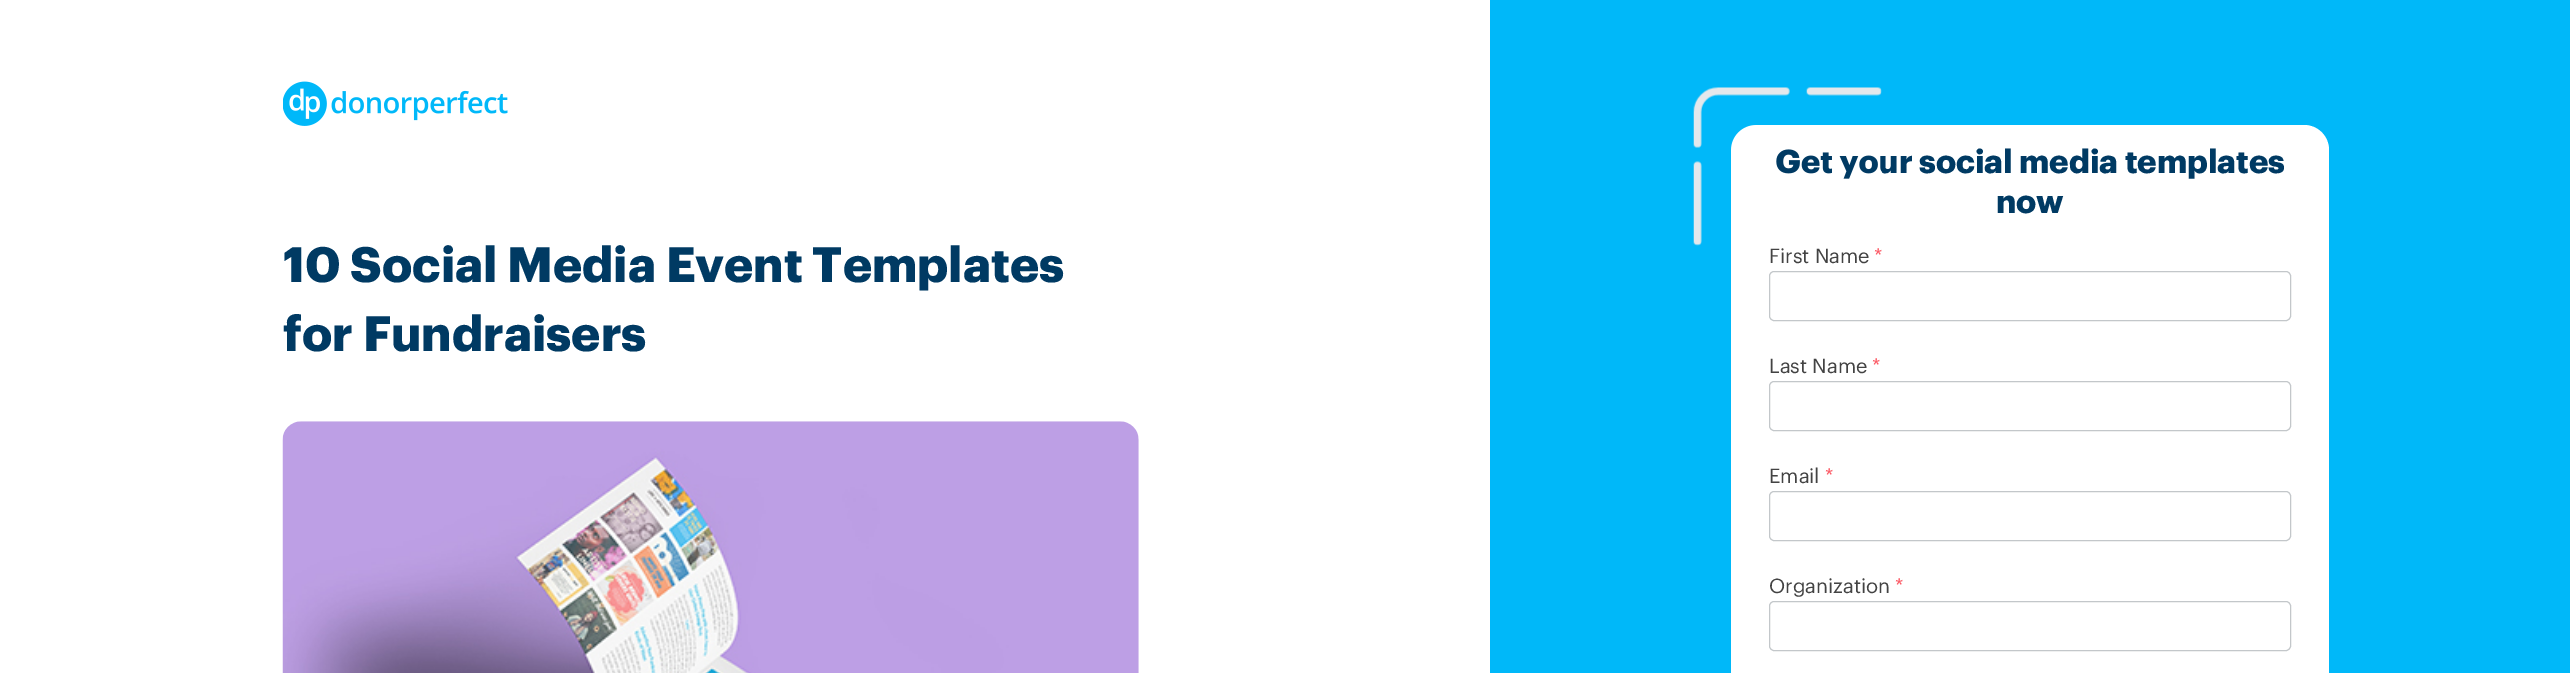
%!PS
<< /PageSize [2570 673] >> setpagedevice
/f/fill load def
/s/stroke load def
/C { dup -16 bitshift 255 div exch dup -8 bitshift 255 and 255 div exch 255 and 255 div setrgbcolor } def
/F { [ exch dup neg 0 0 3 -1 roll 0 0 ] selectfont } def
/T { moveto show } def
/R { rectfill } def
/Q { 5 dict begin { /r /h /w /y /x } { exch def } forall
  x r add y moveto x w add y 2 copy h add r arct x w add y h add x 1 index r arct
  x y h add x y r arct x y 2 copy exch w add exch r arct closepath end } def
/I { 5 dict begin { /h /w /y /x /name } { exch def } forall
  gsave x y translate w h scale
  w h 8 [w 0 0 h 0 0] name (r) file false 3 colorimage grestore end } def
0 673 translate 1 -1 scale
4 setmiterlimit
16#FFFFFF C
0 0 2570 673 R
(1.rgb) 283 81 225 45 I
/Graphik-Bold 48.75 F
16#003A63 C
(10 Social Media Event Templates) 283 282 T
(for Fundraisers) 283 351 T
(2.rgb) 282 421 857 252 I
16#00B8F9 C
1490 0 1080 673 R
16#FFFFFF C
1731 125 598 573 25 Q f
/Graphik-Bold 32.5 F
16#003A63 C
(Get your social media templates) 1775 173 T
(3.rgb) 1693 87 189 159 I
(now) 1996 213 T
/Graphik-Regular 20 F
16#434343 C
(First Name) 1769 263 T
16#FC5C67 C
(*) 1874 263 T
16#C3C7CA C
1769.5 271.5 521 49 4.5 Q s
16#434343 C
(Last Name) 1769 373 T
16#FC5C67 C
(*) 1872 373 T
16#C3C7CA C
1769.5 381.5 521 49 4.5 Q s
16#434343 C
(Email) 1769 483 T
16#FC5C67 C
(*) 1825 483 T
16#C3C7CA C
1769.5 491.5 521 49 4.5 Q s
16#434343 C
(Organization) 1769 593 T
16#FC5C67 C
(*) 1895 593 T
16#C3C7CA C
1769.5 601.5 521 49 4.5 Q s
showpage
